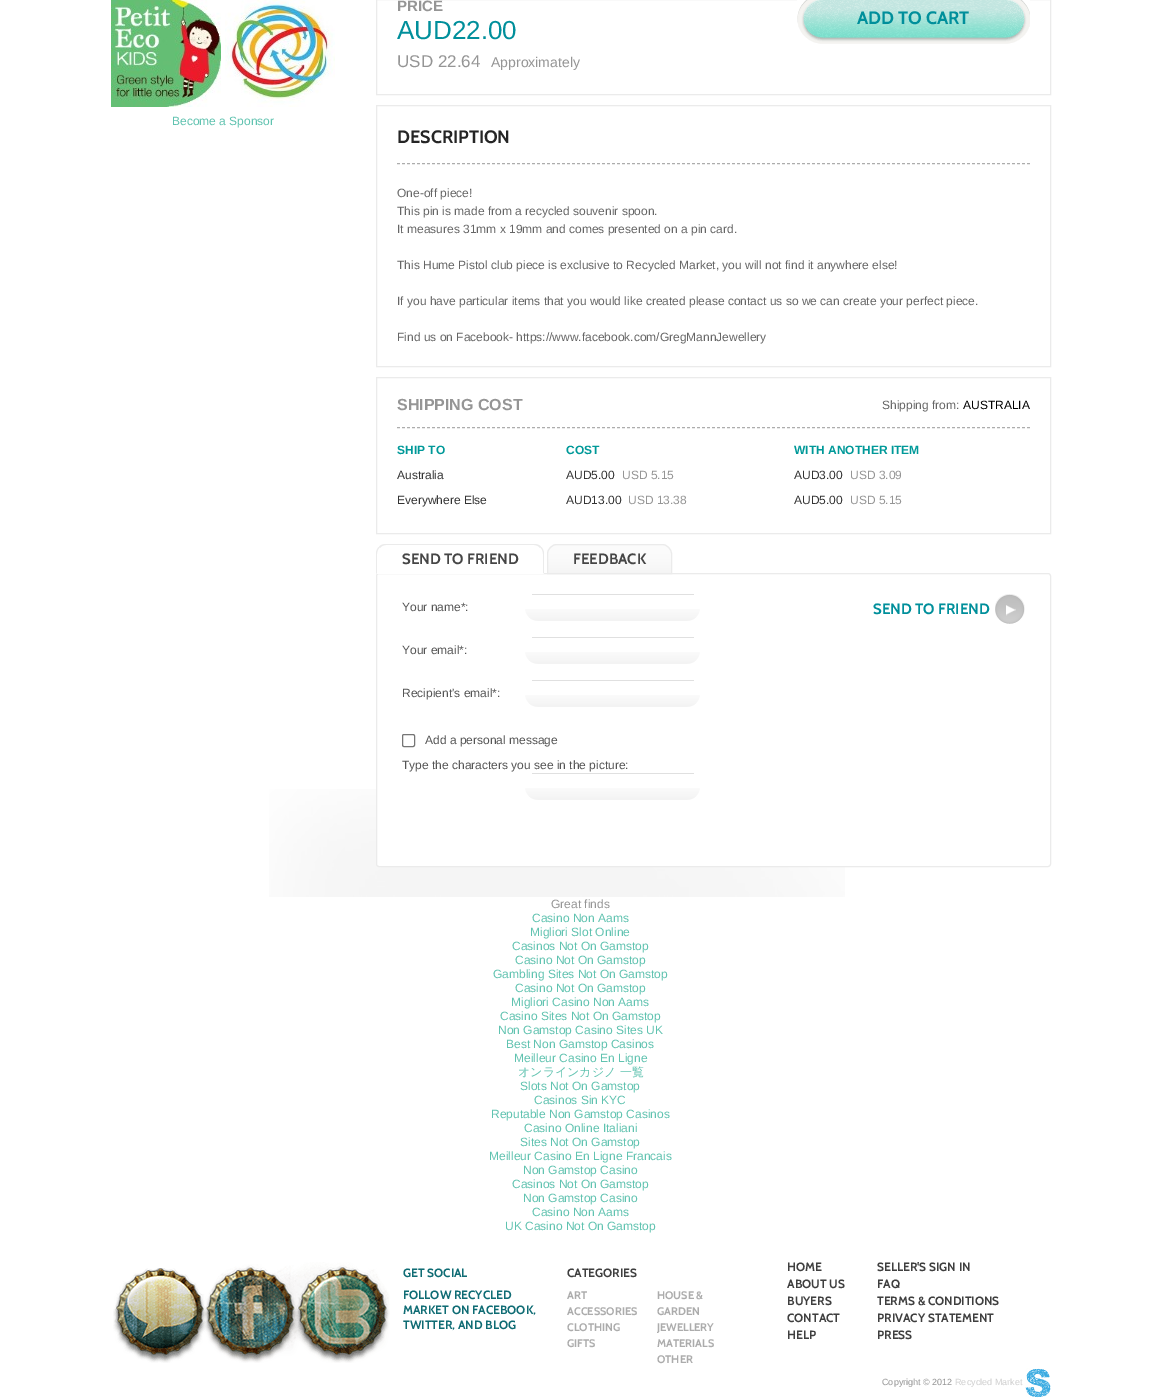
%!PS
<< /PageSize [1161 1398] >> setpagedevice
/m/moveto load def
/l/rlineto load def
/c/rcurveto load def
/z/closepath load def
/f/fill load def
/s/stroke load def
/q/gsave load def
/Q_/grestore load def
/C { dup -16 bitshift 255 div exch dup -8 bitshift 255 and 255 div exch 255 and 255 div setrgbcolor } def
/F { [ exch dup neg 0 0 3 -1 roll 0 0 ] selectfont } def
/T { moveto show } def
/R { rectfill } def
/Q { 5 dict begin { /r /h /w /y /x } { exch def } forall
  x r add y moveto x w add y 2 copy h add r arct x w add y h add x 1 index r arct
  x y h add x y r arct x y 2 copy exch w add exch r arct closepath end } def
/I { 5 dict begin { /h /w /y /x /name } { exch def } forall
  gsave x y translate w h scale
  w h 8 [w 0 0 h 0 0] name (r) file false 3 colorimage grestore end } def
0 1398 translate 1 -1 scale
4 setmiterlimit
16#FFFFFF C
0 0 1161 1398 R
(1.rgb) 269 789 576 108 I
(2.rgb) 111 0 110 107 I
(3.rgb) 225 0 110 107 I
/LiberationSans-Regular 12 F
16#60C3B0 C
(Become a Sponsor) 172 125 T
16#EBEBEB C
376.5 -.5 674 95 rectstroke
/LiberationSans-Bold 15 F
16#959595 C
(PRICE) 397 11 T
/LiberationSans-Regular 26 F
16#008F9B C
(AUD22.00) 397 39 T
/LiberationSans-Regular 17 F
16#959595 C
(USD 22.64) 397 67 T
/LiberationSans-Regular 14 F
(Approximately) 491 67 T
(4.rgb) 797 0 208 44 I
/Cabin-Bold 18 F
16#008F9B C
(ADD TO CART) 857 24 T
(5.rgb) 1005 0 25 44 I
16#EBEBEB C
376.5 105.5 674 261 rectstroke
16#ADADAD C
[3 2] 0 setdash
397 163.5 m 633 0 l s
16#252525 C
(DESCRIPTION) 397 143 T
/LiberationSans-Regular 12 F
16#666666 C
(One-off piece!) 397 197 T
(This pin is made from a recycled souvenir spoon.) 397 215 T
(It measures 31mm x 19mm and comes presented on a pin card.) 397 233 T
(This Hume Pistol club piece is exclusive to Recycled Market, you will not find it anywhere else!) 397 269 T
(If you have particular items that you would like created please contact us so we can create your perfect piece.) 397 305 T
(Find us on Facebook- https://www.facebook.com/GregMannJewellery) 397 341 T
16#EBEBEB C
[] 0 setdash
376.5 377.5 674 156 rectstroke
16#ADADAD C
[3 2] 0 setdash
397 427.5 m 633 0 l s
/LiberationSans-Bold 16 F
16#959595 C
(SHIPPING COST) 397 410 T
/LiberationSans-Regular 12 F
16#666666 C
(Shipping from:) 882 409 T
16#000000 C
(AUSTRALIA) 963 409 T
/LiberationSans-Bold 12 F
16#009999 C
(SHIP TO) 397 454 T
(COST) 566 454 T
(WITH ANOTHER ITEM) 794 454 T
/LiberationSans-Regular 12 F
16#333333 C
(Australia) 397 479 T
(AUD5.00) 566 479 T
16#959595 C
(USD 5.15) 622 479 T
16#333333 C
(AUD3.00) 794 479 T
16#959595 C
(USD 3.09) 850 479 T
16#333333 C
(Everywhere Else) 397 504 T
(AUD13.00) 566 504 T
16#959595 C
(USD 13.38) 628 504 T
16#333333 C
(AUD5.00) 794 504 T
16#959595 C
(USD 5.15) 850 504 T
16#FFFFFF C
376.5 573.5 674 293 2.5 Q q f Q_
16#EBEBEB C
[] 0 setdash
s
16#FFFFFF C
386 544 m 148 0 l 5.5 0 10 4.5 10 10 c 0 20 l -168 0 l 0 -20 l 0 -5.5 4.5 -10 10 -10 c z f
16#EBEBEB C
386 544 m -3 0 -6 1 -7 3 c 1 1 l 1 -2 4 -3 6 -3 c 148 0 l 2 0 5 1 6 3 c 1 -1 l -1 -2 -4 -3 -7 -3 c z f
544 574 m 0 -20 l 0 -3 -1 -5.5 -3 -7 c -.5 .5 l 1.5 1.5 2.5 4 2.5 6.5 c 0 19 l z f
16#FFFFFF C
544 574 m -1 -1 l -166 0 l -1 1 l z f
16#EBEBEB C
376 574 m 1 -1 l 0 -19 l 0 -2.5 1 -5 2.5 -6.5 c -.5 -.5 l -2 1.5 -3 4 -3 7 c z f
/Cabin-Bold 15 F
16#464646 C
(SEND TO FRIEND) 402 564 T
(6.rgb) 547 544 125 29 I
16#EBEBEB C
557 544.5 m 105 0 l 5 0 9.5 4.5 9.5 9.5 c 0 19.5 l -124 0 l 0 -19.5 l 0 -5 4.5 -9.5 9.5 -9.5 c z s
16#464646 C
(FEEDBACK) 573 564 T
/LiberationSans-Regular 12 F
16#555555 C
(Your name*:) 402 611 T
(7.rgb) 525 609 175 12 I
16#E0E0E0 C
532 594 162 1 R
(8.rgb) 995 594 30 30 I
/Cabin-Bold 15 F
16#008F9B C
(SEND TO FRIEND) 873 614 T
/LiberationSans-Regular 12 F
16#555555 C
(Your email*:) 402 654 T
(7.rgb) 525 652 175 12 I
16#E0E0E0 C
532 637 162 1 R
16#555555 C
(Recipient's email*:) 402 697 T
(7.rgb) 525 695 175 12 I
16#E0E0E0 C
532 680 162 1 R
16#767676 C
402.5 734.5 12 12 1.5 Q s
16#555555 C
(Add a personal message) 425 744 T
(Type the characters you see in the picture:) 402 769 T
(7.rgb) 525 788 175 12 I
16#E0E0E0 C
532 773 162 1 R
16#959595 C
(Great finds) 551 908 T
16#60C3B0 C
(Casino Non Aams) 532 922 T
(Migliori Slot Online) 530 936 T
(Casinos Not On Gamstop) 512 950 T
(Casino Not On Gamstop) 515 964 T
(Gambling Sites Not On Gamstop) 493 978 T
(Casino Not On Gamstop) 515 992 T
(Migliori Casino Non Aams) 511 1006 T
(Casino Sites Not On Gamstop) 500 1020 T
(Non Gamstop Casino Sites UK) 498 1034 T
(Best Non Gamstop Casinos) 506 1048 T
(Meilleur Casino En Ligne) 514 1062 T
/WenQuanYiZenHei-Medium 12 F
(オンラインカジノ 一覧) 518 1076 T
/LiberationSans-Regular 12 F
(Slots Not On Gamstop) 520 1090 T
(Casinos Sin KYC) 534 1104 T
(Reputable Non Gamstop Casinos) 491 1118 T
(Casino Online Italiani) 524 1132 T
(Sites Not On Gamstop) 520 1146 T
(Meilleur Casino En Ligne Francais) 489 1160 T
(Non Gamstop Casino) 523 1174 T
(Casinos Not On Gamstop) 512 1188 T
(Non Gamstop Casino) 523 1202 T
(Casino Non Aams) 532 1216 T
(UK Casino Not On Gamstop) 505 1230 T
(9.rgb) 113 1268 92 95 I
(10.rgb) 205 1264 92 99 I
(11.rgb) 297 1262 93 101 I
/Cabin-Bold 12 F
16#0F6C74 C
(GET SOCIAL) 403 1277 T
(FOLLOW RECYCLED) 403 1299 T
(MARKET ON FACEBOOK,) 403 1314 T
(TWITTER, AND BLOG) 403 1329 T
16#3F3F3F C
(CATEGORIES) 567 1277 T
/Cabin-Bold 11 F
16#ACACAC C
(ART) 567 1299 T
(HOUSE &) 657 1299 T
(GARDEN) 657 1315 T
(ACCESSORIES) 567 1315 T
(CLOTHING) 567 1331 T
(JEWELLERY) 657 1331 T
(GIFTS) 567 1347 T
(MATERIALS) 657 1347 T
(OTHER) 657 1363 T
/Cabin-Bold 12 F
16#3F3F3F C
(HOME) 787 1271 T
(SELLER'S SIGN IN) 877 1271 T
(ABOUT US) 787 1288 T
(FAQ) 877 1288 T
(BUYERS) 787 1305 T
(TERMS & CONDITIONS) 877 1305 T
(CONTACT) 787 1322 T
(PRIVACY STATEMENT) 877 1322 T
(HELP) 787 1339 T
(PRESS) 877 1339 T
/LiberationSans-Regular 9 F
16#959595 C
(Copyright © 2012) 882 1385 T
16#CFCFCF C
(Recycled Market) 955 1385 T
(12.rgb) 1025 1368 26 30 I
showpage
